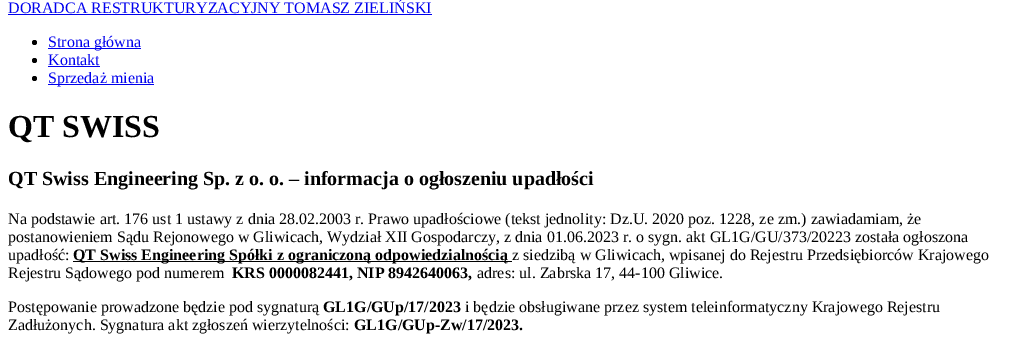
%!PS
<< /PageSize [1028 339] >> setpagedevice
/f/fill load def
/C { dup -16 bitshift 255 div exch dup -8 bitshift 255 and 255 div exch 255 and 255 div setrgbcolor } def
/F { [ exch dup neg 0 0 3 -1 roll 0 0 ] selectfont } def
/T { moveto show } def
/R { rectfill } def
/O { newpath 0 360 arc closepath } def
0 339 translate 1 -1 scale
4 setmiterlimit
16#FFFFFF C
0 0 1028 339 R
/LiberationSerif-Regular 16 F
16#0000EE C
(DORADCA RESTRUKTURYZACYJNY TOMASZ ZIELIŃSKI) 8 13 T
8 14 424 1 R
16#000000 C
34.5 42.5 2.5 O f
16#0000EE C
48 48 93 1 R
(Strona główna) 48 47 T
16#000000 C
34.5 60.5 2.5 O f
16#0000EE C
(Kontakt) 48 65 T
48 66 52 1 R
16#000000 C
34.5 78.5 2.5 O f
16#0000EE C
48 84 106 1 R
(Sprzedaż mienia) 48 83 T
/LiberationSerif-Bold 32 F
16#000000 C
(QT SWISS) 8 137 T
/LiberationSerif-Bold 20 F
(QT Swiss Engineering Sp. z o. o. – informacja o ogłoszeniu upadłości) 8 185 T
/LiberationSerif-Regular 16 F
(Na podstawie art. 176 ust 1 ustawy z dnia 28.02.2003 r. Prawo upadłościowe \(tekst jednolity: Dz.U. 2020 poz. 1228, ze zm.\) zawiadamiam, że) 8 224 T
(postanowieniem Sądu Rejonowego w Gliwicach, Wydział XII Gospodarczy, z dnia 01.06.2023 r. o sygn. akt GL1G/GU/373/20223 została ogłoszona) 8 242 T
(upadłość:) 8 260 T
73 261 439 1 R
/LiberationSerif-Bold 16 F
(QT Swiss Engineering Spółki z ograniczoną odpowiedzialnością) 73 260 T
/LiberationSerif-Regular 16 F
(z siedzibą w Gliwicach, wpisanej do Rejestru Przedsiębiorców Krajowego) 512 260 T
(Rejestru Sądowego pod numerem) 8 278 T
/LiberationSerif-Bold 16 F
(KRS 0000082441, NIP 8942640063,) 232 278 T
/LiberationSerif-Regular 16 F
(adres: ul. Zabrska 17, 44-100 Gliwice.) 477 278 T
(Postępowanie prowadzone będzie pod sygnaturą) 8 312 T
/LiberationSerif-Bold 16 F
(GL1G/GUp/17/2023) 323 312 T
/LiberationSerif-Regular 16 F
(i będzie obsługiwane przez system teleinformatyczny Krajowego Rejestru) 465 312 T
(Zadłużonych. Sygnatura akt zgłoszeń wierzytelności:) 8 330 T
/LiberationSerif-Bold 16 F
(GL1G/GUp-Zw/17/2023.) 354 330 T
showpage
